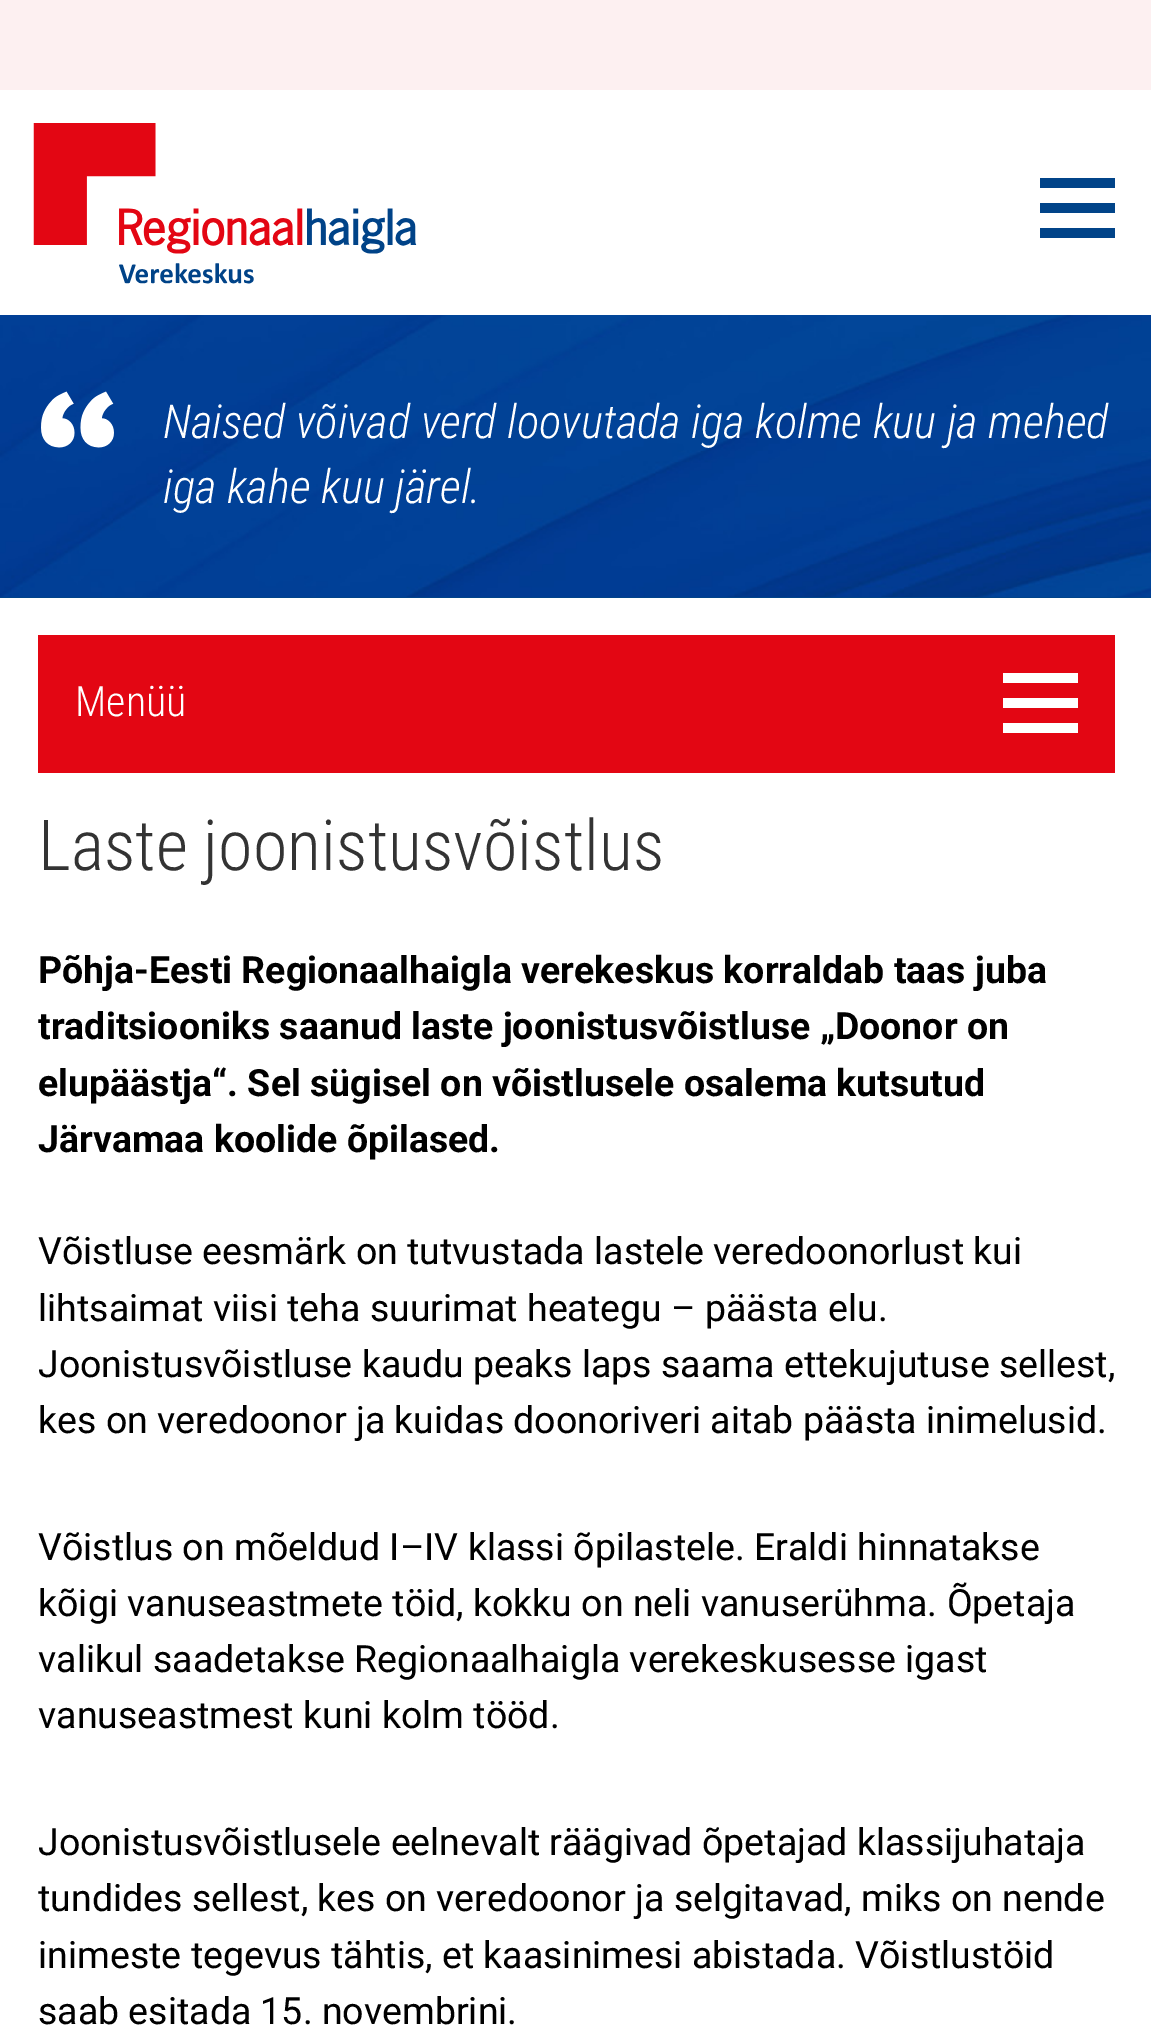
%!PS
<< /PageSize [1151 2028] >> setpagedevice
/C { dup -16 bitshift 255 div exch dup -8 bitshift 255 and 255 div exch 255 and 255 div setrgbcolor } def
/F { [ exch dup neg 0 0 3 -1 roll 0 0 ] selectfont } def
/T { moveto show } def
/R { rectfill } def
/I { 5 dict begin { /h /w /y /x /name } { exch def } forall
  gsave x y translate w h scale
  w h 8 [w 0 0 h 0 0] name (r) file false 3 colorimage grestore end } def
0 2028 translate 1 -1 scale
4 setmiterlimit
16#FFFFFF C
0 0 1151 2028 R
16#FDF0F1 C
0 0 1151 90 R
(1.rgb) 33 123 384 161 I
16#014489 C
1040 178 75 10 R
1040 203 75 10 R
1040 228 75 10 R
0 597 1151 1 R
(2.rgb) 0 315 1151 282 I
(3.rgb) 41 391 73 57 I
/RobotoCondensed-LightItalic 46.9 F
16#FFFFFF C
(Naised võivad verd loovutada iga kolme kuu ja mehed) 163 438 T
(iga kahe kuu järel.) 163 503 T
16#E30613 C
38 635 1077 138 R
/RobotoCondensed-Light 42 F
16#FFFFFF C
(Menüü) 75 716 T
1003 673 75 10 R
1003 698 75 10 R
1003 723 75 10 R
/RobotoCondensed-Light 70.25 F
16#333333 C
(Laste joonistusvõistlus) 38 870 T
/Roboto-Bold 37.5 F
16#000000 C
(Põhja-Eesti Regionaalhaigla verekeskus korraldab taas juba) 38 983 T
(traditsiooniks saanud laste joonistusvõistluse „Doonor on) 38 1039 T
(elupäästja“. Sel sügisel on võistlusele osalema kutsutud) 38 1096 T
(Järvamaa koolide õpilased.) 38 1152 T
/Roboto-Regular 37.5 F
(Võistluse eesmärk on tutvustada lastele veredoonorlust kui) 38 1264 T
(lihtsaimat viisi teha suurimat heategu – päästa elu.) 38 1321 T
(Joonistusvõistluse kaudu peaks laps saama ettekujutuse sellest,) 38 1377 T
(kes on veredoonor ja kuidas doonoriveri aitab päästa inimelusid.) 38 1433 T
(Võistlus on mõeldud I–IV klassi õpilastele. Eraldi hinnatakse) 38 1560 T
(kõigi vanuseastmete töid, kokku on neli vanuserühma. Õpetaja) 38 1616 T
(valikul saadetakse Regionaalhaigla verekeskusesse igast) 38 1672 T
(vanuseastmest kuni kolm tööd.) 38 1728 T
(Joonistusvõistlusele eelnevalt räägivad õpetajad klassijuhataja) 38 1855 T
(tundides sellest, kes on veredoonor ja selgitavad, miks on nende) 38 1911 T
(inimeste tegevus tähtis, et kaasinimesi abistada. Võistlustöid) 38 1968 T
(saab esitada 15. novembrini.) 38 2024 T
showpage
